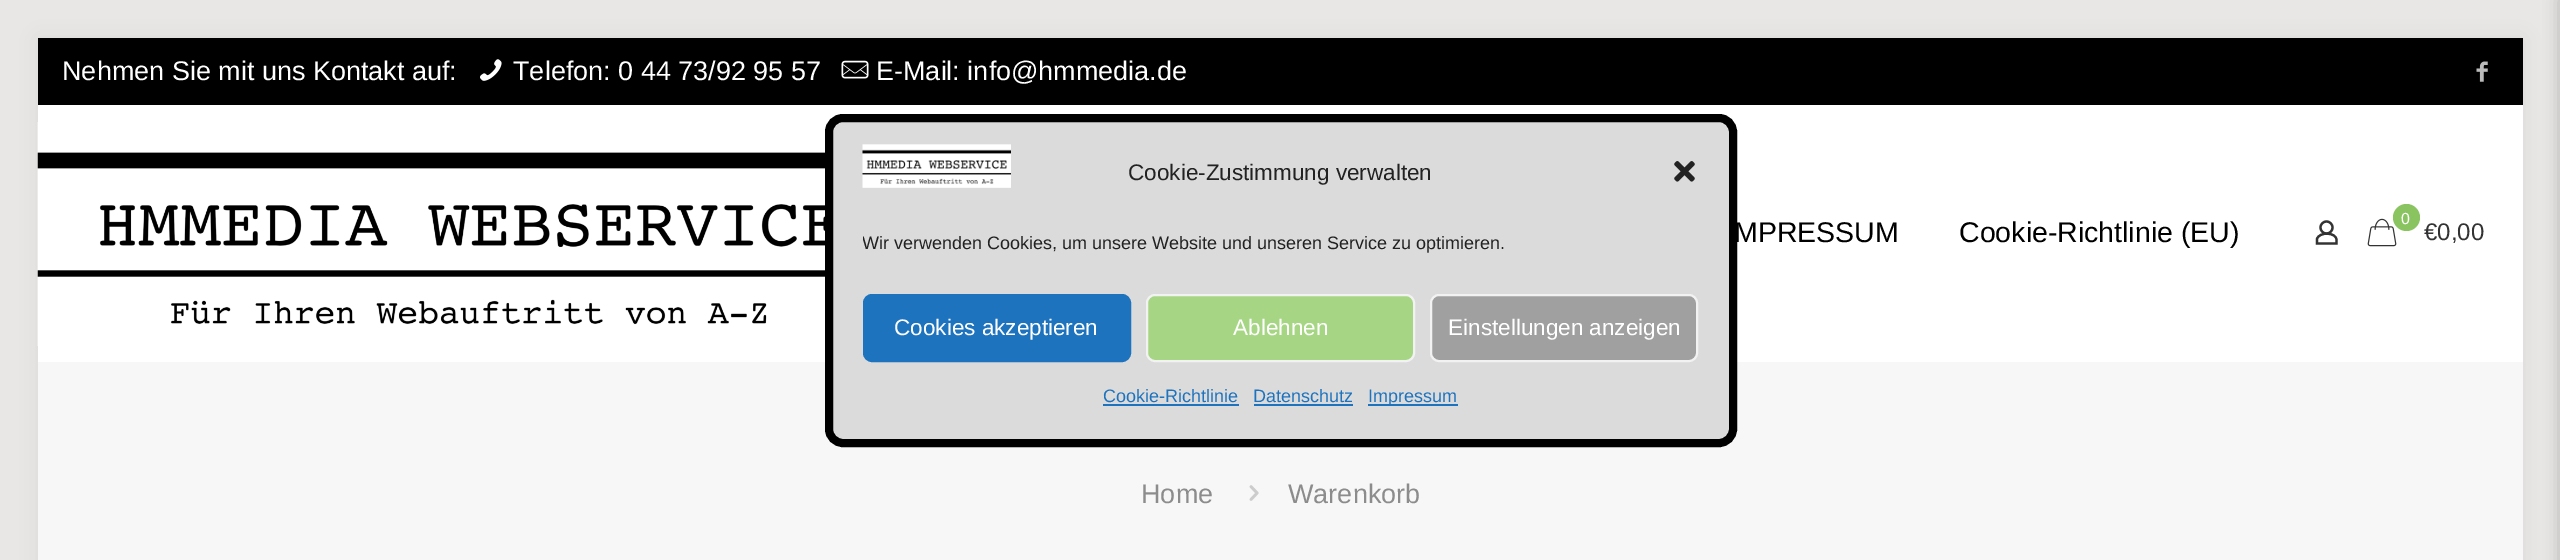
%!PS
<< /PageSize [2560 560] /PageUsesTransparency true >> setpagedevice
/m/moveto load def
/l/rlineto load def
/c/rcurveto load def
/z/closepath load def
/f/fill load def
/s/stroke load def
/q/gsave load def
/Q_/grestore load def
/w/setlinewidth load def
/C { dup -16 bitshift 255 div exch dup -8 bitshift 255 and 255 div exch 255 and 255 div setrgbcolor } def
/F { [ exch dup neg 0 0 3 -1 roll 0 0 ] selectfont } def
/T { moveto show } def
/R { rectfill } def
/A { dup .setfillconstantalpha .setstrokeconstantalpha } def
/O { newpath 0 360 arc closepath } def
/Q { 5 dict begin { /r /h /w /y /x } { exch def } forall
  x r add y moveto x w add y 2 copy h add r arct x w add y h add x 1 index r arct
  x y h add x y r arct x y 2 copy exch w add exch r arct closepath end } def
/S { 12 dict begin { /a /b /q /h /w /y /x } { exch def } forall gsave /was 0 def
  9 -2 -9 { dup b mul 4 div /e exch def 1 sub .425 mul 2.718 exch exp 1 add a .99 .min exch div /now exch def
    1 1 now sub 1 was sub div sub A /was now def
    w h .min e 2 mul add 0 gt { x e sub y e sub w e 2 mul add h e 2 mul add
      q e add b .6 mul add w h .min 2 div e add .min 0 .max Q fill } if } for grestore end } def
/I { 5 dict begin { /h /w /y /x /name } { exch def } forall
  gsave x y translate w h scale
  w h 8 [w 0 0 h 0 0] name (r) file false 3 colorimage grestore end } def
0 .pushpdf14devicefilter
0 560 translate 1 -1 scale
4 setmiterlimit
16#E9E6E6 C
0 0 2560 560 R
16#000000 C
38 38 2485 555 0 11 .06 S
38 38 2485 67 R
/LiberationSans-Regular 27 F
16#FFFFFF C
(Nehmen Sie mit uns Kontakt auf:) 62 80 T
(1.rgb) 480 59 22 22 I
(Telefon: 0 44 73/92 95 57) 513 80 T
(2.rgb) 841 60 28 19 I
(E-Mail: info@hmmedia.de) 876 80 T
(3.rgb) 2476 61 12 21 I
38 105 2485 257 R
(4.rgb) 37 122 791 224 I
/LiberationSans-Regular 28.5 F
16#000000 C
(MPRESSUM) 1734 242 T
(Cookie-Richtlinie \(EU\)) 1959 242 T
16#333333 C
2.2 w
2326.5 227.5 6 O s
2336.5 240 m 0 3.5 l -19.5 0 l 0 -4.5 l 2 -7.5 19.5 -7 19.5 1 c z s
(5.rgb) 2367 218 30 29 I
16#89C461 C
2406.5 217.5 13.5 O f
/LiberationSans-Regular 16 F
16#FFFFFF C
(0) 2401 224 T
/LiberationSans-Regular 24 F
16#333333 C
(€0,00) 2424 240 T
16#F7F7F7 C
38 362 2485 198 R
/LiberationSans-Regular 27 F
16#8C8C8C C
(Home) 1141 503 T
(6.rgb) 1249 485 10 16 I
(Warenkorb) 1288 503 T
16#000000 C
2559 -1 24 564 0 7.5 .2 S
16#DBDBDB C
829 118 904 325 14 Q q f Q_
16#000000 C
8 w
s
(7.rgb) 862 144 149 44 I
/LiberationSans-Regular 22.5 F
16#222222 C
(Cookie-Zustimmung verwalten) 1128 180 T
(8.rgb) 1674 161 21 21 I
q
863 230 837 34 rectclip
/LiberationSans-Regular 18 F
(Wir verwenden Cookies, um unsere Website und unseren Service zu optimieren.) 862 249 T
Q_
16#1E73BE C
864 295 266 66 8 Q q f Q_
2 w
s
16#FFFFFF C
(Cookies akzeptieren) 894 335 T
16#A6D684 C
1147 295 267 66 8 Q q f Q_
16#F2F2F2 C
s
16#FFFFFF C
(Ablehnen) 1233 335 T
16#A0A0A0 C
1431 295 266 66 8 Q q f Q_
16#F2F2F2 C
s
16#FFFFFF C
(Einstellungen anzeigen) 1448 335 T
/LiberationSans-Regular 18 F
16#1E73BE C
(Cookie-Richtlinie) 1103 402 T
1103 404 136 2 R
(Datenschutz) 1253 402 T
1254 404 99 2 R
1368 404 90 2 R
(Impressum) 1368 402 T
.poppdf14devicefilter showpage
